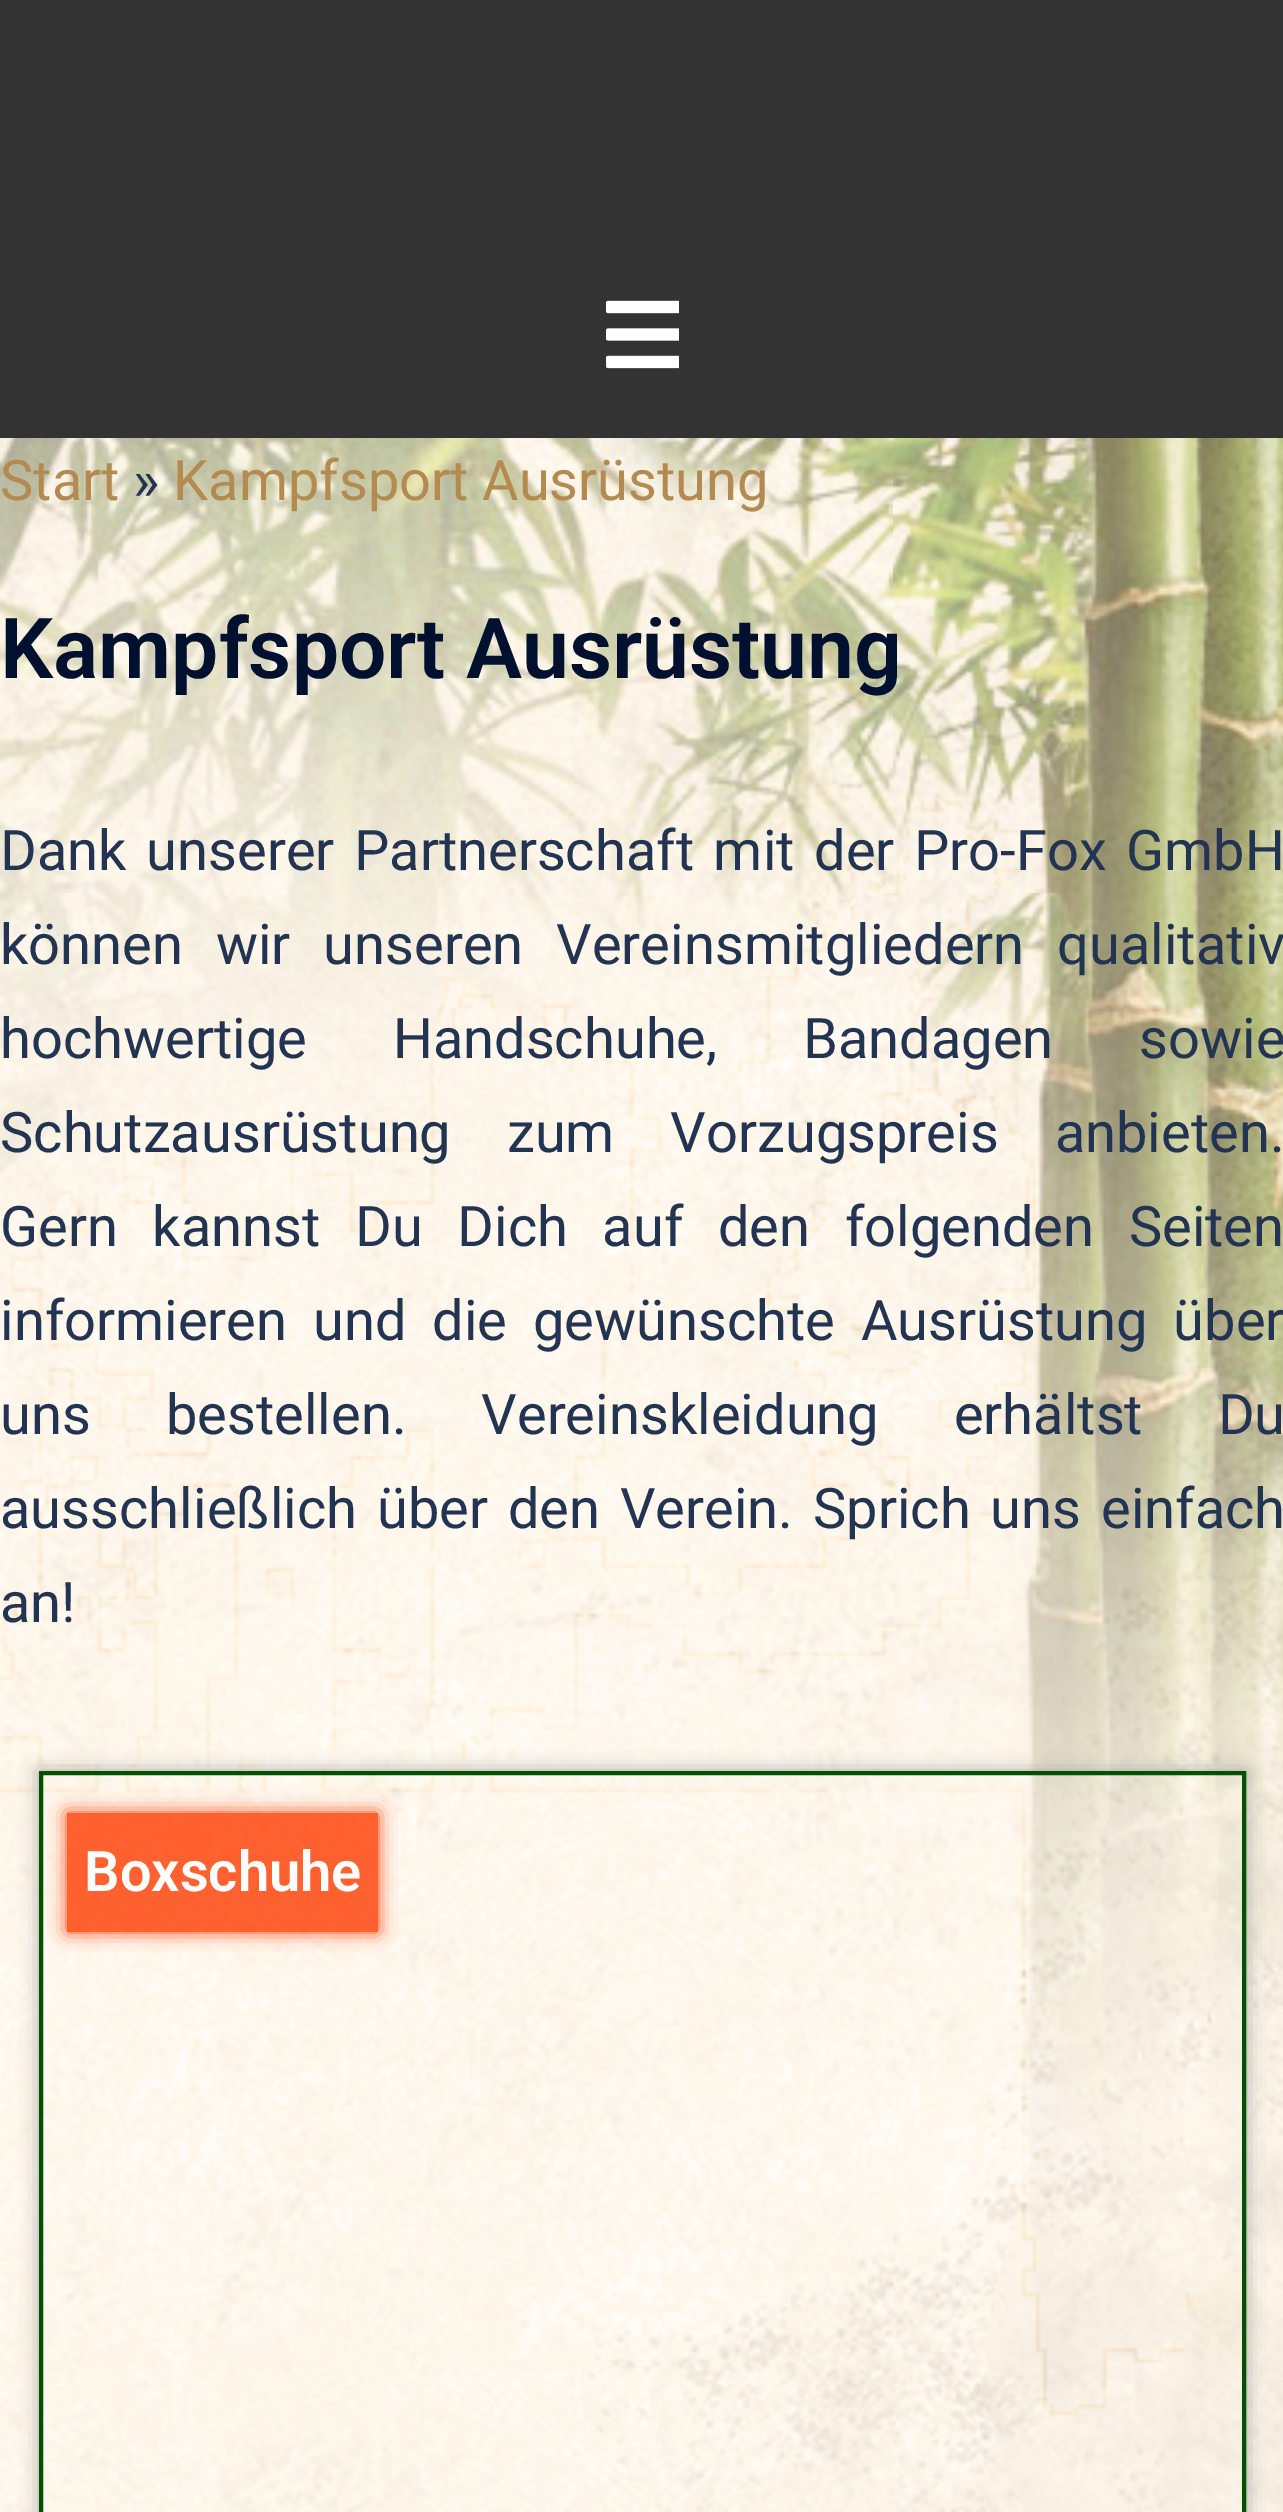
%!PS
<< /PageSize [1283 2512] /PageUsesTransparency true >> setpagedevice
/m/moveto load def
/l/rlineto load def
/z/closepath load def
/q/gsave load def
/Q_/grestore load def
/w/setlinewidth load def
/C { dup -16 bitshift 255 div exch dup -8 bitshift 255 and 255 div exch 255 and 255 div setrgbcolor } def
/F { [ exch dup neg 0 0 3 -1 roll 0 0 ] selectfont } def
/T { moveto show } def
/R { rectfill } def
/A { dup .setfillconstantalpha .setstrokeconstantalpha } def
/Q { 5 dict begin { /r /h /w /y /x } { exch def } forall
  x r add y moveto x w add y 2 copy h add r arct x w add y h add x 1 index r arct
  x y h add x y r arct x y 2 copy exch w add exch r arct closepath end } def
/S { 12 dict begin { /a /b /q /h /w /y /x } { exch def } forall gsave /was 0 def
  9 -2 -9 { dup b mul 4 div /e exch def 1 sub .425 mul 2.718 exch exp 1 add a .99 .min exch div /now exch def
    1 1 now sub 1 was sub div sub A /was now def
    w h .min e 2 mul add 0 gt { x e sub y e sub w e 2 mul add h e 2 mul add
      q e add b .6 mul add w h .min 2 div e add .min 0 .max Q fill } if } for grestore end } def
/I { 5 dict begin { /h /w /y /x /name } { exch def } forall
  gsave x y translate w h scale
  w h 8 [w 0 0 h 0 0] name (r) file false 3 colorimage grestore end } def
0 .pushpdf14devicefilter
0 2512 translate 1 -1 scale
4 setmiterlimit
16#FFFFFF C
0 0 1283 2512 R
(1.rgb) 0 438 1283 2074 I
16#333333 C
0 0 1283 438 R
(2.rgb) 606 300 73 69 I
/Roboto-Regular 56 F
16#B38B50 C
(Start) 0 500 T
16#233452 C
(») 133 500 T
16#B38B50 C
(Kampfsport Ausrüstung) 173 500 T
/Roboto-SemiBold 84 F
16#00102E C
(Kampfsport Ausrüstung) 0 678 T
/Roboto-Regular 56 F
16#233452 C
0 870 m 5.75 0 32 (Dank unserer Partnerschaft mit der Pro-Fox GmbH) widthshow
0 964 m 19 0 32 (können wir unseren Vereinsmitgliedern qualitativ) widthshow
0 1058 m 72 0 32 (hochwertige Handschuhe, Bandagen sowie) widthshow
0 1152 m 42 0 32 (Schutzausrüstung zum Vorzugspreis anbieten.) widthshow
0 1246 m 20.75 0 32 (Gern kannst Du Dich auf den folgenden Seiten) widthshow
0 1340 m 12 0 32 (informieren und die gewünschte Ausrüstung über) widthshow
0 1434 m 61 0 32 (uns bestellen. Vereinskleidung erhältst Du) widthshow
0 1528 m 6 0 32 (ausschließlich über den Verein. Sprich uns einfach) widthshow
(an!) 0 1622 T
q
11 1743 m 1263 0 l 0 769 l -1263 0 l z 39 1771 m 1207 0 l 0 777 l -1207 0 l z eoclip newpath
16#A7A6A6 C
39 1771 1207 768 0 9 1 S
Q_
16#005200 C
4 w
41 1773 1203 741 rectstroke
q
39 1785 m 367 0 l 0 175 l -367 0 l z 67 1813 m 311 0 l 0 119 l -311 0 l z eoclip newpath
16#FE3C00 C
67 1813 311 119 0 9 1 S
Q_
0.8 A
16#FE3C00 C
67 1813 311 119 R
/Roboto-SemiBold 56 F
1 A
16#FFFFFF C
(Boxschuhe) 84 1891 T
.poppdf14devicefilter showpage
